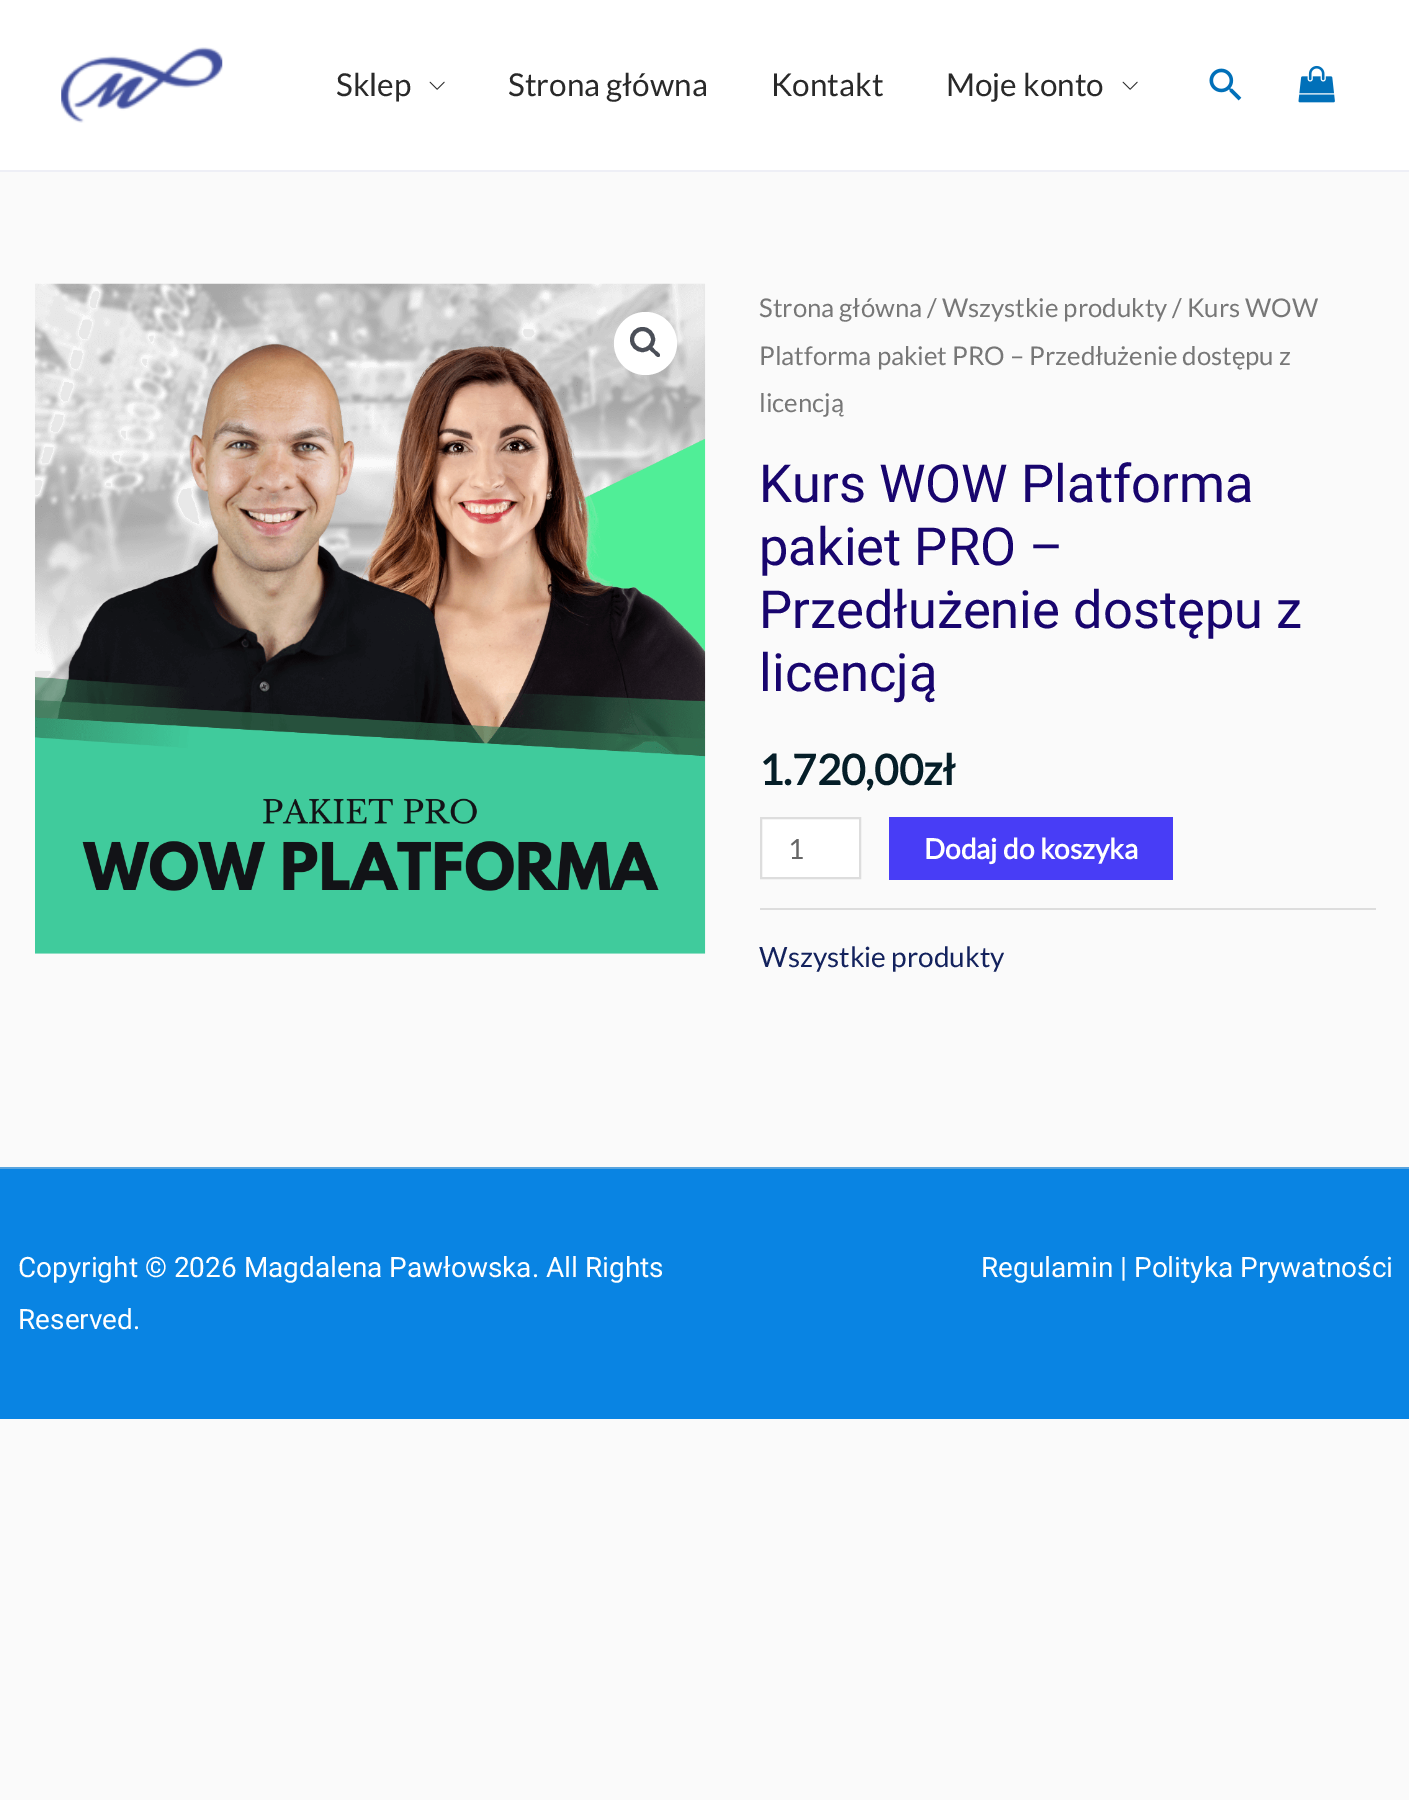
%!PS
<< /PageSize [1409 1800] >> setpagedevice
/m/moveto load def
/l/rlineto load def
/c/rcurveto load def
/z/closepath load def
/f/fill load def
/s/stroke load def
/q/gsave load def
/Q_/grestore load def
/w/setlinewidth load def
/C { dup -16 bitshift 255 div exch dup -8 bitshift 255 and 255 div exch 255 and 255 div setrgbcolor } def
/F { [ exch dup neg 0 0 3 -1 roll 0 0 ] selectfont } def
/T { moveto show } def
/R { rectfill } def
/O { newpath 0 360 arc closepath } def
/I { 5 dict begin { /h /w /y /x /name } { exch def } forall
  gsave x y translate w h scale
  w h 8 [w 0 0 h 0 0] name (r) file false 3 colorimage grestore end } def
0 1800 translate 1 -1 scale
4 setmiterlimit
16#FAFAFA C
0 0 1409 1800 R
16#FFFFFF C
0 0 1409 170 R
16#EEEFF6 C
0 170 1409 2 R
(1.rgb) 61 47 162 76 I
/Lato-Regular 31.5 F
16#292929 C
(Sklep) 336 96 T
(2.rgb) 429 81 16 9 I
(Strona główna) 508 96 T
(Kontakt) 771 96 T
(Moje konto) 946 96 T
(2.rgb) 1122 81 16 9 I
(3.rgb) 1209 68 33 33 I
(4.rgb) 1298 65 37 38 I
(5.rgb) 35 283 671 671 I
16#FFFFFF C
645.5 343.5 31.5 O f
16#4B4F58 C
4 w
642.5 339.5 10.5 O s
649.5 347 m 2 -2 5 2.5 6 3.5 c 1.5 1 6 4 4 6 c -2 2 -5 -2.5 -6 -3.5 c -1.5 -1 -6 -4 -4 -6 c z f
/Lato-Regular 25.75 F
16#777777 C
(Strona główna / Wszystkie produkty / Kurs WOW) 759 317 T
(Platforma pakiet PRO – Przedłużenie dostępu z) 759 365 T
(licencją) 759 412 T
/Roboto-Regular 52.5 F
16#18056E C
(Kurs WOW Platforma) 759 502 T
(pakiet PRO –) 759 565 T
(Przedłużenie dostępu z) 759 628 T
(licencją) 759 691 T
/Lato-Bold 42 F
16#051E28 C
(1.720,00zł) 759 785 T
16#FFFFFF C
761 818 m 99 0 l 0 60 l -99 0 l z q f Q_
16#DDDDDD C
2 w
s
/Lato-Regular 28 F
16#666666 C
(1) 788 859 T
16#483DF6 C
889 817 284 63 R
/Lato-Bold 28 F
16#FFFFFF C
(Dodaj do koszyka) 924 859 T
16#DDDDDD C
760 908 616 2 R
/Lato-Regular 28 F
16#13225D C
(Wszystkie produkty) 759 967 T
16#0984E3 C
0 1169 1409 250 R
16#59A4DE C
0 1167 1409 2 R
/Roboto-Regular 28 F
16#FFFFFF C
(Copyright © 2026 Magdalena Pawłowska. All Rights) 18 1277 T
(Reserved.) 18 1329 T
(Regulamin | Polityka Prywatności) 981 1277 T
showpage
